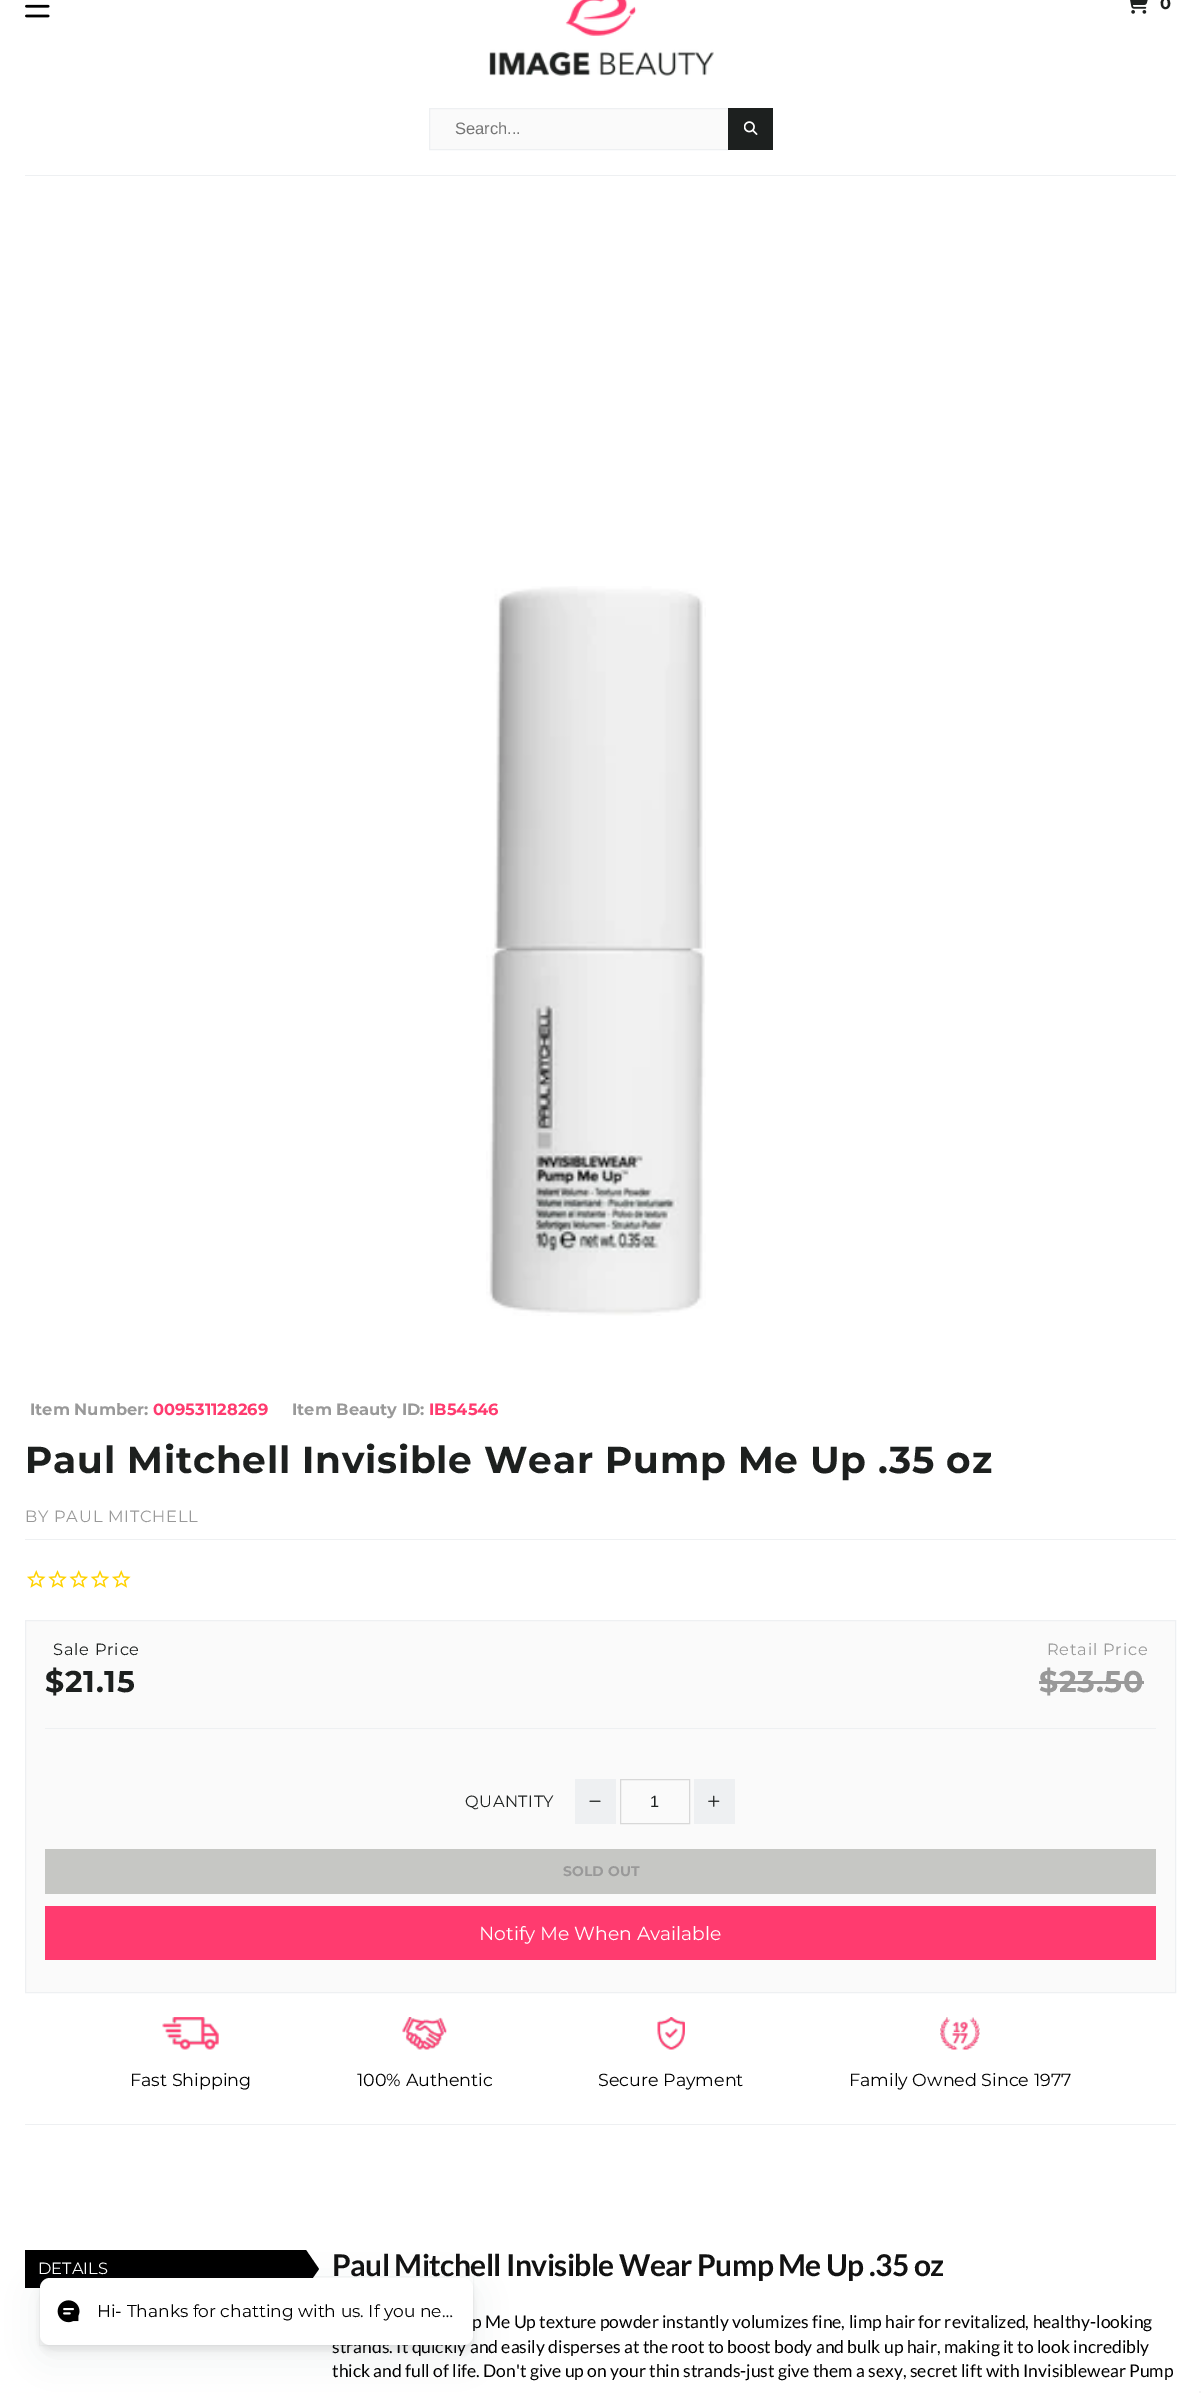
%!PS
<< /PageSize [1201 2393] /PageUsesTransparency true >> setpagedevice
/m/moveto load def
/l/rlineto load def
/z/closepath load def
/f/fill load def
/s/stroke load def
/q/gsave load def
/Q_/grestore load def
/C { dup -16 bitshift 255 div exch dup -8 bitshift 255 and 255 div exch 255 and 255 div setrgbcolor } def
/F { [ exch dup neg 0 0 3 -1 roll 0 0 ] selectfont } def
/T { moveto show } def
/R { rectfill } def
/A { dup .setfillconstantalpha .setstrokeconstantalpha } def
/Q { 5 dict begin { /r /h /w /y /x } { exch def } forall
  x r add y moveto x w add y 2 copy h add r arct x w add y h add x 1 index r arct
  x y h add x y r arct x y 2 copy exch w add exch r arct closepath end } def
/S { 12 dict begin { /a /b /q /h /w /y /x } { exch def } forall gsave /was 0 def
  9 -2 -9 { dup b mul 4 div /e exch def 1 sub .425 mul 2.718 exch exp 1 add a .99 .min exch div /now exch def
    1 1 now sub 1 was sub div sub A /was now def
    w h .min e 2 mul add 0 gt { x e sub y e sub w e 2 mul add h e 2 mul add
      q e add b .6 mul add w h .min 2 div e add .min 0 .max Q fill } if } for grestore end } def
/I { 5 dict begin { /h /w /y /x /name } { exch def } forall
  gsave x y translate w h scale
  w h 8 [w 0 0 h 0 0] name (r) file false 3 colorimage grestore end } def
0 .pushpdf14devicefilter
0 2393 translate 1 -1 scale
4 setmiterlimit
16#FFFFFF C
0 0 1201 2393 R
(1.rgb) 25 4 25 14 I
(2.rgb) 489 0 225 76 I
(3.rgb) 1130 0 18 14 I
/Montserrat-Bold 16.25 F
16#1D201F C
(0) 1160 9 T
16#EEF0F2 C
25 175 1151 1 R
16#FAFAFA C
429.5 108.5 m 299 0 l 0 41 l -299 0 l z q f Q_
16#EEF0F2 C
s
/LiberationSans-Regular 16.5 F
16#757575 C
(Search...) 455 134 T
16#1D201F C
728 108 45 42 R
(4.rgb) 744 121 14 14 I
(5.rgb) 486 586 220 730 I
/Montserrat-Bold 16.25 F
16#999999 C
(Item Number:) 30 1415 T
16#FF3B6F C
(009531128269) 153 1415 T
16#999999 C
(Item Beauty ID:) 292 1415 T
16#FF3B6F C
(IB54546) 429 1415 T
/Montserrat-Bold 37.5 F
16#1D201F C
25 1473 m .75 0 (Paul Mitchell Invisible Wear Pump Me Up .35 oz) ashow
16#EEF0F2 C
25 1539 1151 1 R
/Montserrat-Thin 16.25 F
16#999999 C
25 1522 m .75 0 (BY PAUL MITCHELL) ashow
(6.rgb) 27 1570 19 18 I
(7.rgb) 48 1570 19 18 I
(8.rgb) 69 1570 19 18 I
(9.rgb) 90 1570 20 18 I
(6.rgb) 112 1570 19 18 I
16#FAFAFA C
25.5 1620.5 m 1150 0 l 0 372 l -1150 0 l z q f Q_
16#EEF0F2 C
s
16#1D201F C
53 1655 m .75 0 (Sale Price) ashow
/Montserrat-Bold 30 F
45 1692 m .75 0 ($21.15) ashow
/Montserrat-Thin 16.25 F
16#999999 C
1047 1655 m .75 0 (Retail Price) ashow
/Montserrat-Bold 30 F
1039 1692 m .75 0 ($23.50) ashow
1039 1681 105 3 R
16#EEF0F2 C
45 1728 1111 1 R
/Montserrat-Thin 16.25 F
16#1D201F C
465 1807 m .5 0 (QUANTITY) ashow
16#EEF0F2 C
575 1779 41 45 R
(10.rgb) 589 1800 12 2 I
16#D8D8D8 C
620.5 1779.5 69 44 rectstroke
/LiberationSans-Regular 16.25 F
16#1D201F C
(1) 650 1807 T
16#EEF0F2 C
694 1779 41 45 R
(11.rgb) 708 1795 12 12 I
16#C6C7C4 C
45 1849 1111 45 R
/Montserrat-Bold 14 F
16#999999 C
(SOLD OUT) 563 1876 T
16#FF3B6F C
45 1906 1111 54 R
/Montserrat-Thin 18.75 F
16#FFFFFF C
(Notify Me When Available) 479 1940 T
16#EEF0F2 C
25 2124 1151 1 R
(12.rgb) 162 2017 57 33 I
/Montserrat-Thin 17.5 F
16#000000 C
(Fast Shipping) 130 2086 T
(13.rgb) 402 2017 45 33 I
(100% Authentic) 357 2086 T
(14.rgb) 657 2017 28 33 I
(Secure Payment) 598 2086 T
(15.rgb) 940 2017 40 33 I
(Family Owned Since 1977) 849 2086 T
25 2250 281 38 R
/Montserrat-Thin 16.25 F
16#FFFFFF C
(DETAILS) 38 2274 T
16#000000 C
306 2287.5 m 0 -37.5 l 13 19 l z f
/Lato-Bold 30 F
16#121212 C
332 2276 m -.6 0 (Paul Mitchell Invisible Wear Pump Me Up .35 oz) ashow
/Lato-Regular 17.5 F
16#000000 C
(p Me Up texture powder instantly volumizes fine, limp hair for revitalized, healthy-looking) 472 2328 T
(strands. It quickly and easily disperses at the root to boost body and bulk up hair, making it to look incredibly) 332 2353 T
(thick and full of life. Don't give up on your thin strands-just give them a sexy, secret lift with Invisiblewear Pump) 332 2377 T
16#373F47 C
40 2288 433 68 10 16 .08 S
40 2283 433 68 10 2.5 .08 S
0.04 A
39.5 2276.5 434 69 rectstroke
1 A
16#FFFFFF C
40 2278 433 67 10 Q f
(16.rgb) 57 2300 23 23 I
/Montserrat-Thin 17.1 F
16#000000 C
(Hi- Thanks for chatting with us. If you ne…) 97 2317 T
16#F5F5F5 C
1199 2391 2 2 R
.poppdf14devicefilter showpage
